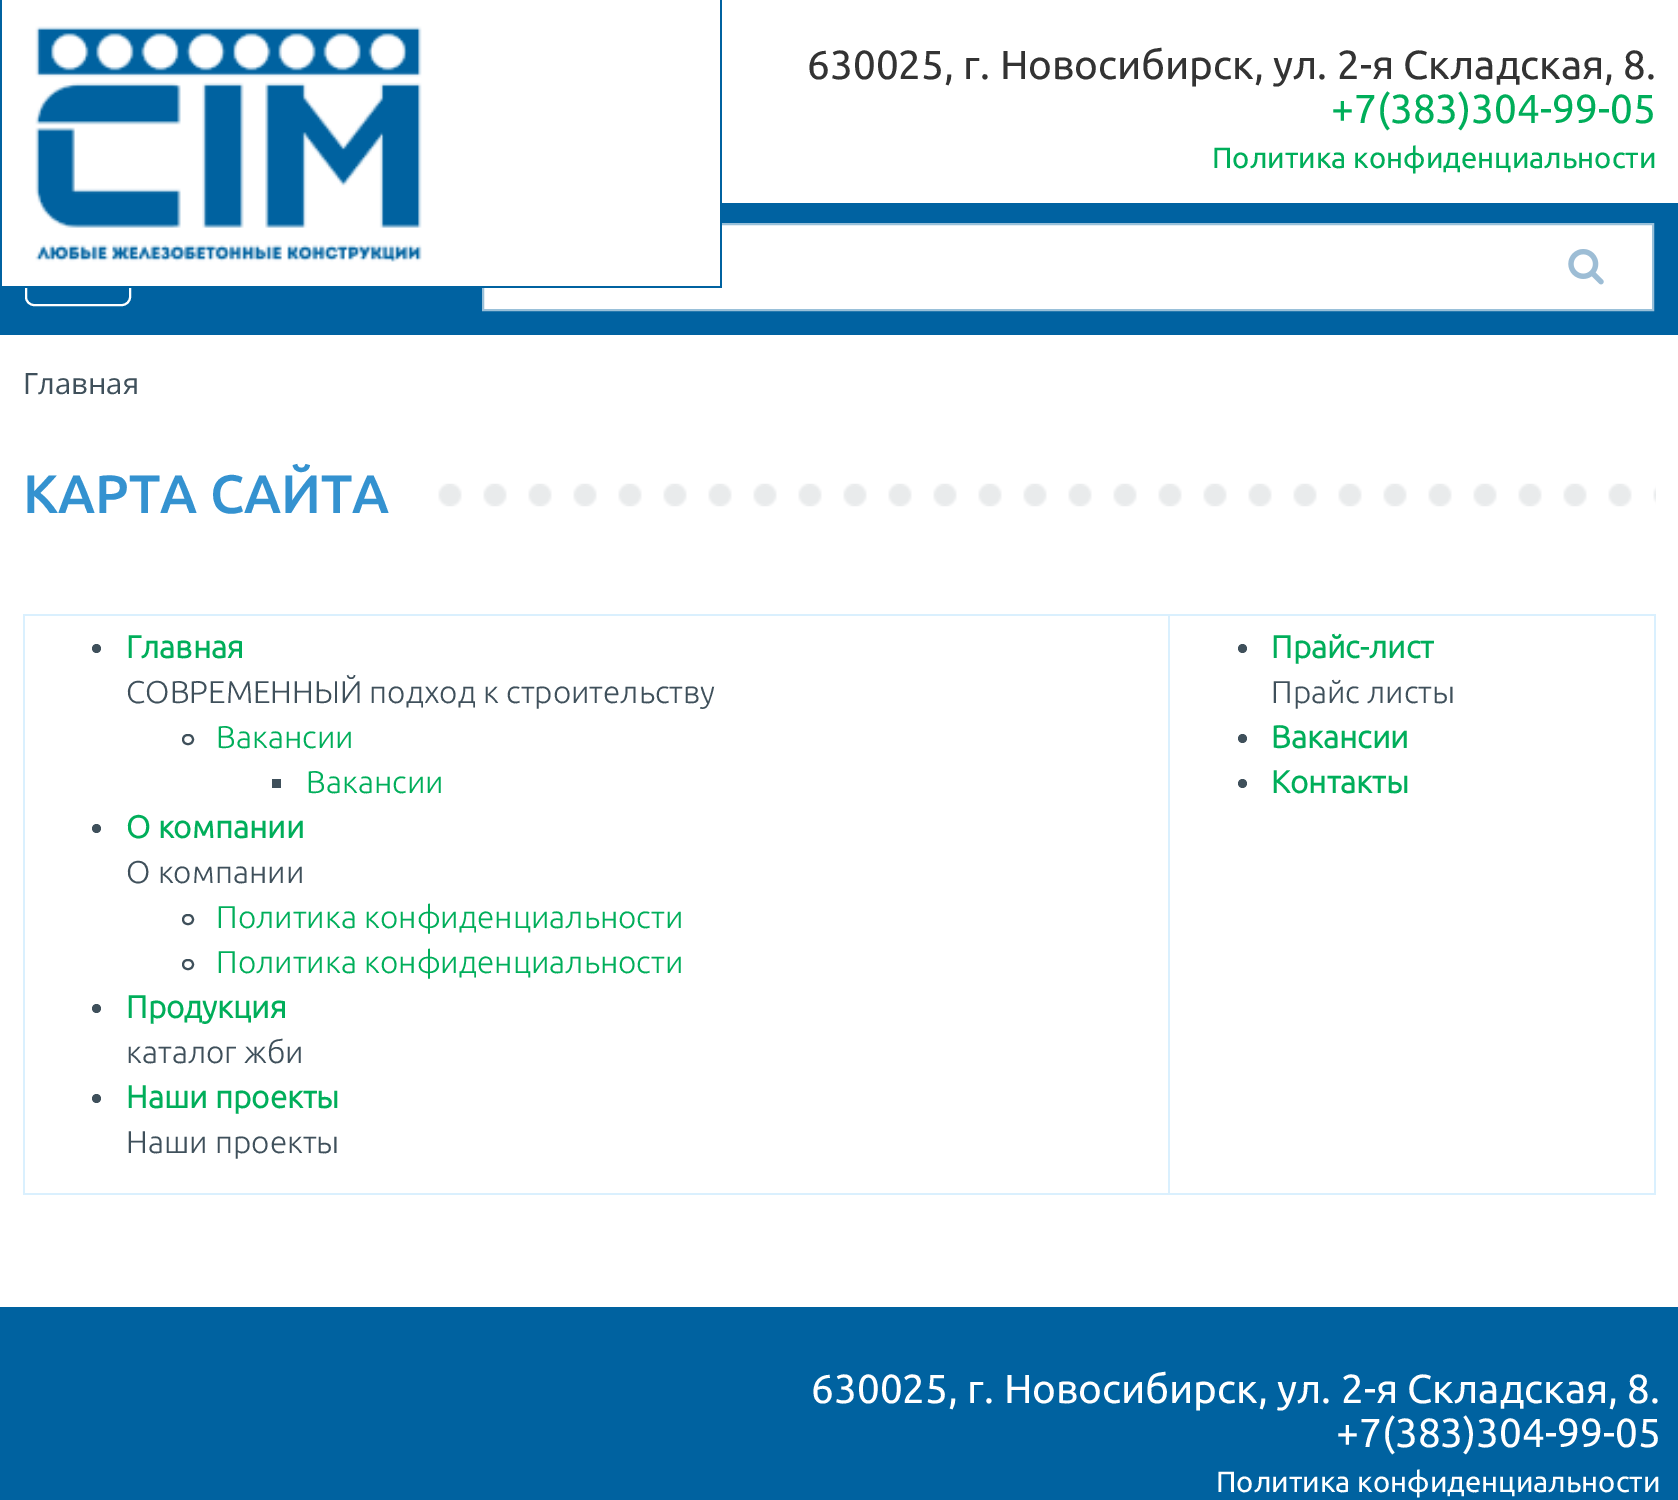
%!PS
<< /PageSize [1678 1500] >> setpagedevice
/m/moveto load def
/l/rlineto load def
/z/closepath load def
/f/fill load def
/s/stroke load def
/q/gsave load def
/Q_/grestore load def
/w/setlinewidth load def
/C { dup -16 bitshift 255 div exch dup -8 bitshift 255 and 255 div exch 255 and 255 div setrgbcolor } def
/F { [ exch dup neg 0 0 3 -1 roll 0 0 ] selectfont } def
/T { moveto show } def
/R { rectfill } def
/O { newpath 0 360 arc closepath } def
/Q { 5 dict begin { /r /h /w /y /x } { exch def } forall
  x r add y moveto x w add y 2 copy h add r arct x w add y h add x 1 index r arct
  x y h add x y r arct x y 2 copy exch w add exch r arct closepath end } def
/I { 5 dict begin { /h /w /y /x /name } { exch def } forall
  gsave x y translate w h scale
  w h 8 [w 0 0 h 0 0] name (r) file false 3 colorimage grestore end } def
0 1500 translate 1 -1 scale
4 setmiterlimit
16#FFFFFF C
0 0 1678 1500 R
16#0062A1 C
0 203 1678 132 R
16#FFFFFF C
2 w
26 224 104 81 8 Q s
483 224 m 1170 0 l 0 86 l -1170 0 l z q f Q_
16#99C0D9 C
s
16#FFFFFF C
2 203 718 83 R
16#0062A0 C
720 0 2 288 R
25 286 697 2 R
0 0 2 203 R
(1.rgb) 35 26 387 236 I
/Ubuntu-Regular 40.5 F
16#333333 C
(630025, г. Новосибирск, ул. 2-я Складская, 8.) 807 79 T
16#00AE5A C
(+7\(383\)304-99-05) 1331 123 T
/Ubuntu-Regular 29.25 F
(Политика конфиденциальности) 1212 168 T
(2.rgb) 1568 249 36 36 I
/OpenSans-Regular 29.25 F
16#3F505B C
(Главная) 23 394 T
(3.rgb) 438 483 1218 24 I
/Ubuntu-Medium 54 F
16#3492D0 C
(КАРТА САЙТА) 23 513 T
16#DAF0FE C
1168 614 488 2 R
1654 614 2 581 R
1168 1193 488 2 R
1168 614 2 581 R
23 614 1147 2 R
23 1193 1147 2 R
23 614 2 581 R
16#3F505B C
96.5 648.5 4.5 O f
/Ubuntu-Bold 31.5 F
16#00AE5A C
(Главная) 126 658 T
/Ubuntu-Light 31.5 F
16#3F505B C
(СОВРЕМЕННЫЙ подход к строительству) 126 703 T
183 735 10 9 4.5 Q s
16#00AE5A C
(Вакансии) 216 748 T
16#3F505B C
272 779 9 9 R
16#00AE5A C
(Вакансии) 306 793 T
16#3F505B C
96.5 828.5 4.5 O f
/Ubuntu-Bold 31.5 F
16#00AE5A C
(О компании) 126 838 T
/Ubuntu-Light 31.5 F
16#3F505B C
(О компании) 126 883 T
183 915 10 9 4.5 Q s
16#00AE5A C
(Политика конфиденциальности) 216 928 T
16#3F505B C
183 960 10 9 4.5 Q s
16#00AE5A C
(Политика конфиденциальности) 216 973 T
16#3F505B C
96.5 1008.5 4.5 O f
/Ubuntu-Bold 31.5 F
16#00AE5A C
(Продукция) 126 1018 T
/Ubuntu-Light 31.5 F
16#3F505B C
(каталог жби) 126 1063 T
96.5 1098.5 4.5 O f
/Ubuntu-Bold 31.5 F
16#00AE5A C
(Наши проекты) 126 1108 T
/Ubuntu-Light 31.5 F
16#3F505B C
(Наши проекты) 126 1153 T
1242.5 648.5 4.5 O f
/Ubuntu-Bold 31.5 F
16#00AE5A C
(Прайс-лист) 1271 658 T
/Ubuntu-Light 31.5 F
16#3F505B C
(Прайс листы) 1271 703 T
1242.5 738.5 4.5 O f
/Ubuntu-Bold 31.5 F
16#00AE5A C
(Вакансии) 1271 748 T
16#3F505B C
1242.5 783.5 4.5 O f
16#00AE5A C
(Контакты) 1271 793 T
16#0062A0 C
0 1307 1678 193 R
/Ubuntu-Regular 40.5 F
16#FFFFFF C
(630025, г. Новосибирск, ул. 2-я Складская, 8.) 811 1403 T
(+7\(383\)304-99-05) 1336 1447 T
/Ubuntu-Regular 29.25 F
(Политика конфиденциальности) 1216 1492 T
showpage
